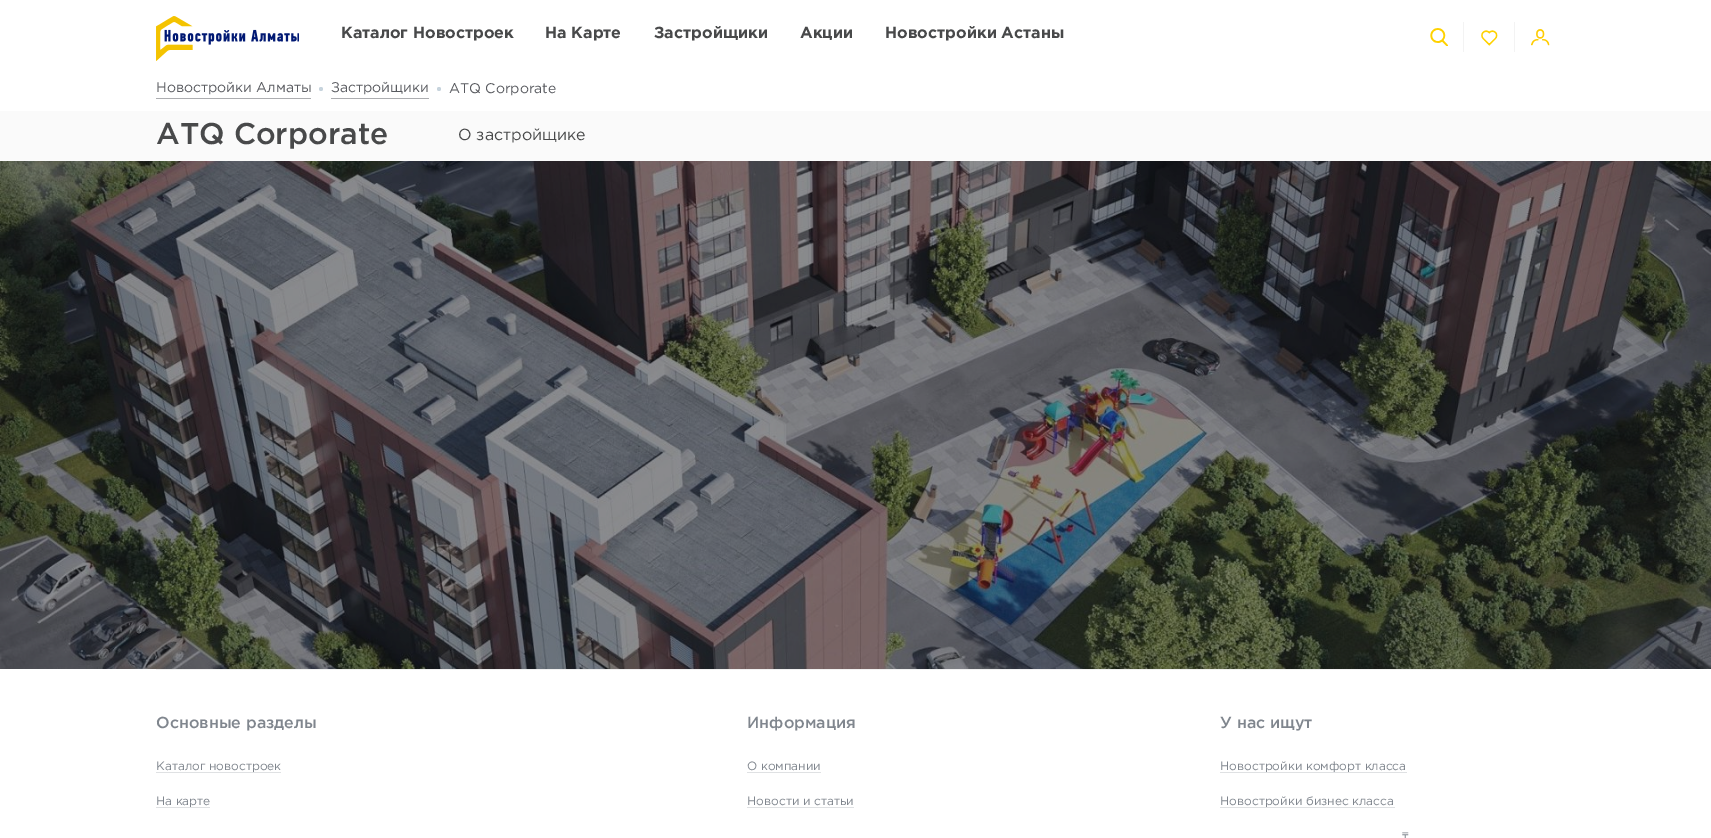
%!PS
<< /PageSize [1711 838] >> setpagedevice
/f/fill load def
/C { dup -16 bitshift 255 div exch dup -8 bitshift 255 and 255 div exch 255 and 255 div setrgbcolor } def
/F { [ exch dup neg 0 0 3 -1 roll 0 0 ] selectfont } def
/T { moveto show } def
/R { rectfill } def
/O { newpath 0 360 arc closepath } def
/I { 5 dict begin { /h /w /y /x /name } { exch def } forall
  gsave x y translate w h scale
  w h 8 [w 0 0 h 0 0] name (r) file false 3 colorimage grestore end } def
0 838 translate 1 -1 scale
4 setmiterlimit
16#FFFFFF C
0 0 1711 838 R
(1.rgb) 156 16 143 45 I
/Gotham-Bold 16 F
16#48494A C
(Каталог Новостроек) 341 38 T
(На Карте) 545 38 T
(Застройщики) 654 38 T
(Акции) 800 38 T
(Новостройки Астаны) 885 38 T
(2.rgb) 1430 28 18 18 I
16#F3F3F3 C
1463 22 1 30 R
(3.rgb) 1481 30 17 16 I
1514 22 1 30 R
(4.rgb) 1531 29 19 17 I
16#ACADB0 C
156 98 155 1 R
/Gotham-Regular 14 F
16#595B60 C
(Новостройки Алматы) 156 92 T
16#C7D4DD C
321 89 2 O f
16#ACADB0 C
331 98 98 1 R
16#595B60 C
(Застройщики) 331 92 T
16#C7D4DD C
439 89 2 O f
16#595B60 C
(ATQ Corporate) 449 93 T
16#FAFAFA C
0 111 1711 50 R
/Gotham-Medium 30 F
16#48494A C
(ATQ Corporate) 156 144 T
/Gotham-Regular 16 F
(О застройщике) 458 140 T
(5.rgb) 0 161 1711 508 I
16#F1F1F1 C
156 669 1400 1 R
/Gotham-Medium 16 F
16#80868E C
(Основные разделы) 156 728 T
/Gotham-Regular 12 F
(Каталог новостроек) 156 770 T
16#DFE1E3 C
156 772 125 1 R
16#80868E C
(На карте) 156 805 T
16#DFE1E3 C
156 807 54 1 R
/Gotham-Medium 16 F
16#80868E C
(Информация) 747 728 T
/Gotham-Regular 12 F
(О компании) 747 770 T
16#DFE1E3 C
747 772 74 1 R
16#80868E C
(Новости и статьи) 747 805 T
16#DFE1E3 C
747 807 107 1 R
/Gotham-Medium 16 F
16#80868E C
(У нас ищут) 1220 728 T
/Gotham-Regular 12 F
(Новостройки комфорт класса) 1220 770 T
16#DFE1E3 C
1220 772 187 1 R
16#80868E C
(Новостройки бизнес класса) 1220 805 T
16#DFE1E3 C
1220 807 175 1 R
/NotoSans-Regular 12 F
16#80868E C
(₸) 1402 841 T
showpage
